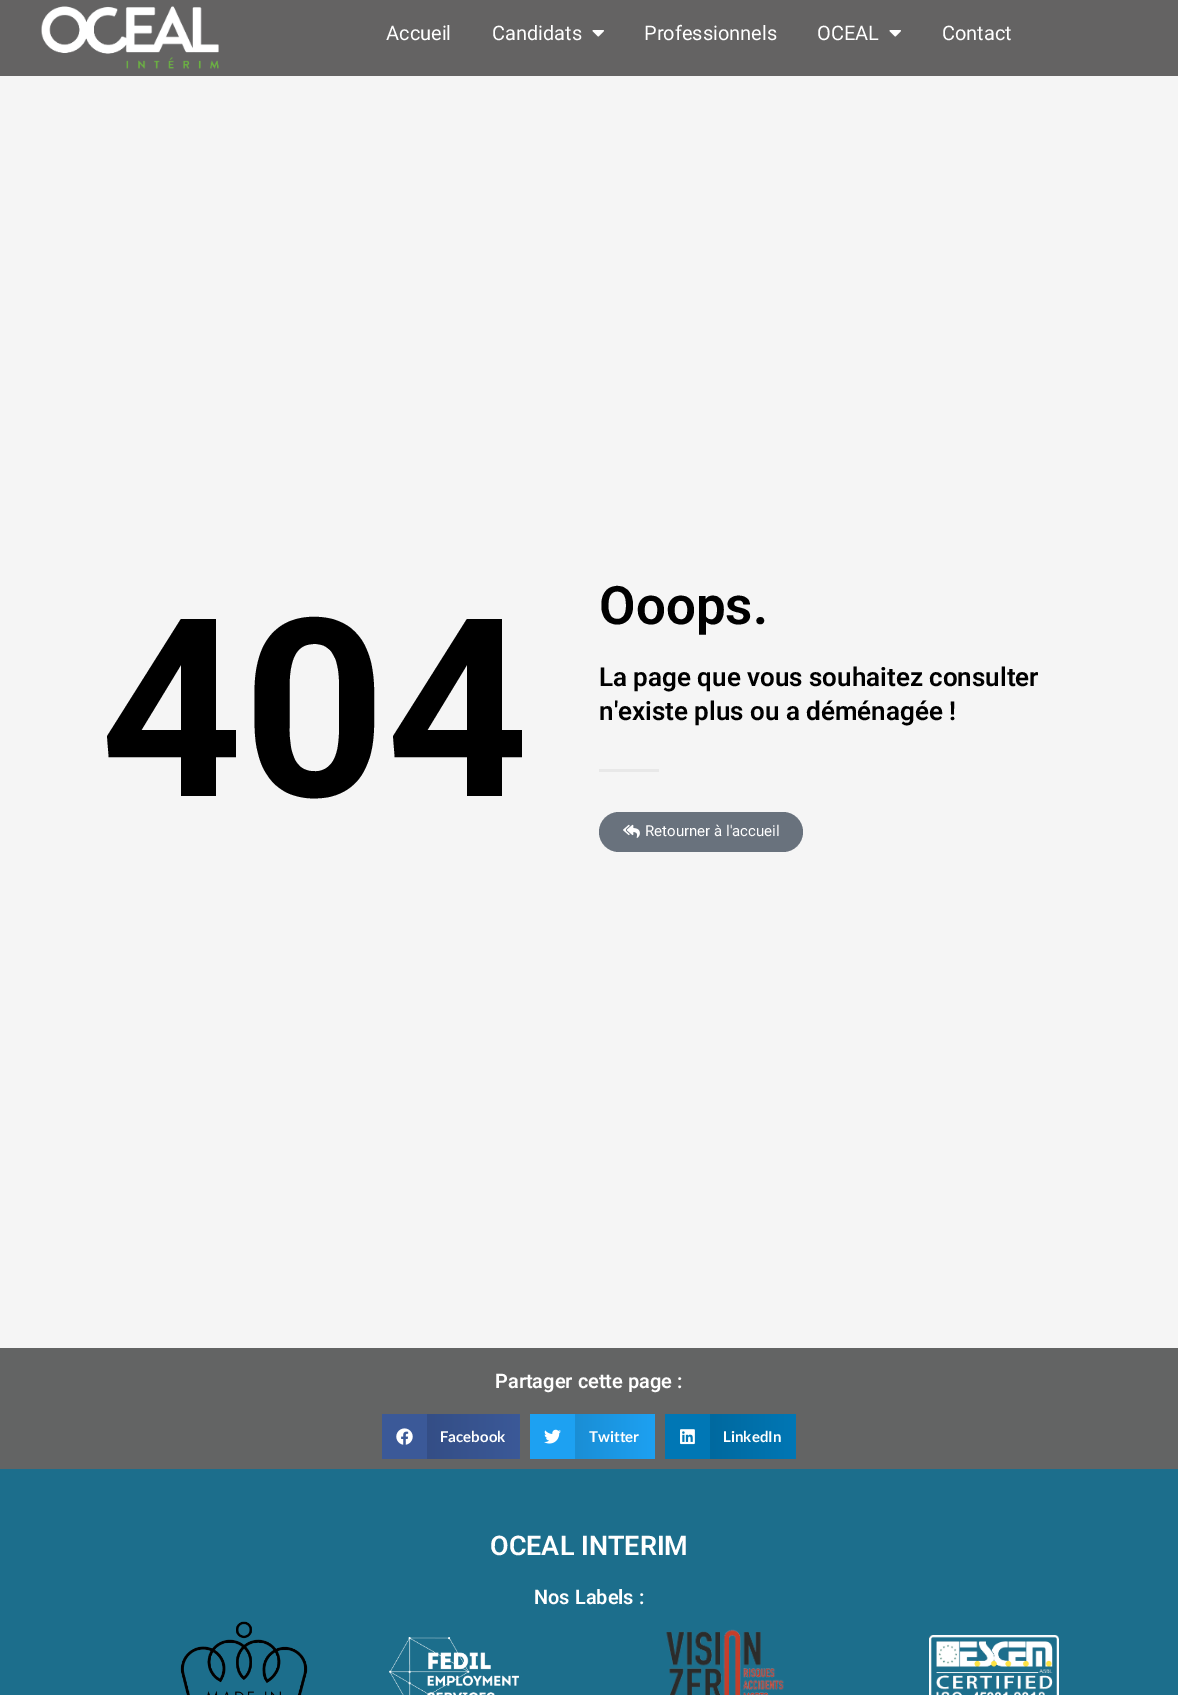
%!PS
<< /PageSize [1178 1695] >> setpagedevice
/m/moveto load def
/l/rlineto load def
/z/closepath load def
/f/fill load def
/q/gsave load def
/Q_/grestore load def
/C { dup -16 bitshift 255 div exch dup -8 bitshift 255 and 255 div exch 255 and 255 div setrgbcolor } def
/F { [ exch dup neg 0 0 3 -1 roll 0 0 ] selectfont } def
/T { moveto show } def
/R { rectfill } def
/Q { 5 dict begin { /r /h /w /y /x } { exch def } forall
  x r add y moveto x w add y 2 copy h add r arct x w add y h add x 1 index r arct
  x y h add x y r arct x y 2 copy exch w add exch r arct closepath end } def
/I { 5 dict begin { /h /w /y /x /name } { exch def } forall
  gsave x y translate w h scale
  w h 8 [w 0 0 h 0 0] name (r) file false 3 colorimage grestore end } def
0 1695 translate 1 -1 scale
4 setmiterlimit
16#F5F5F5 C
0 0 1178 1695 R
16#646363 C
0 0 1178 76 R
(1.rgb) 41 6 178 63 I
/Roboto-Regular 20 F
16#FFFFFF C
(Accueil) 386 40 T
(Candidats) 492 40 T
(2.rgb) 592 30 12 7 I
(Professionnels) 644 40 T
(OCEAL) 817 40 T
(2.rgb) 889 30 12 7 I
(Contact) 942 40 T
/Roboto-Bold 249 F
16#000000 C
(404) 100 796 T
/Roboto-SemiBold 53 F
(Ooops.) 599 624 T
/Roboto-SemiBold 26 F
(La page que vous souhaitez consulter) 599 686 T
(n'existe plus ou a déménagée !) 599 720 T
16#E8E8E8 C
599 769 60 3 R
16#69727D C
599 812 204 40 20 Q f
(3.rgb) 623 824 17 14 I
/Roboto-Regular 15 F
16#FFFFFF C
(Retourner à l'accueil) 645 836 T
16#636464 C
0 1348 1178 121 R
/Roboto-SemiBold 20 F
16#FFFFFF C
(Partager cette page :) 495 1388 T
16#3B5998 C
382 1414 45 45 R
(4.rgb) 396 1428 17 17 I
q 427 1414 m 93 0 l 0 45 l -93 0 l z clip newpath
<< /ShadingType 2 /ColorSpace /DeviceRGB /Coords [427 1437 520 1437] /Extend [true true] /Function << /FunctionType 2 /Domain [0 1] /C0 [.204 .306 .525] /C1 [.231 .349 .596] /N 1 >> >> shfill Q_
/Lato-Bold 15 F
16#FFFFFF C
(Facebook) 440 1442 T
16#1DA1F2 C
530 1414 45 45 R
(5.rgb) 544 1429 17 15 I
q 575 1414 m 80 0 l 0 45 l -80 0 l z clip newpath
<< /ShadingType 2 /ColorSpace /DeviceRGB /Coords [575 1437 655 1437] /Extend [true true] /Function << /FunctionType 2 /Domain [0 1] /C0 [.102 .557 .835] /C1 [.114 .631 .949] /N 1 >> >> shfill Q_
16#FFFFFF C
(Twitter) 589 1442 T
16#0077B5 C
665 1414 45 45 R
(6.rgb) 680 1429 15 16 I
q 710 1414 m 86 0 l 0 45 l -86 0 l z clip newpath
<< /ShadingType 2 /ColorSpace /DeviceRGB /Coords [710 1437 796 1437] /Extend [true true] /Function << /FunctionType 2 /Domain [0 1] /C0 [0 .412 .624] /C1 [0 .467 .71] /N 1 >> >> shfill Q_
16#FFFFFF C
(LinkedIn) 723 1442 T
16#1C6E8C C
0 1469 1178 226 R
/Roboto-SemiBold 27 F
16#FFFFFF C
(OCEAL INTERIM) 490 1555 T
/Roboto-SemiBold 20 F
(Nos Labels :) 534 1604 T
(7.rgb) 180 1621 128 74 I
(8.rgb) 389 1637 130 58 I
(9.rgb) 666 1629 118 66 I
(10.rgb) 929 1635 130 60 I
showpage
